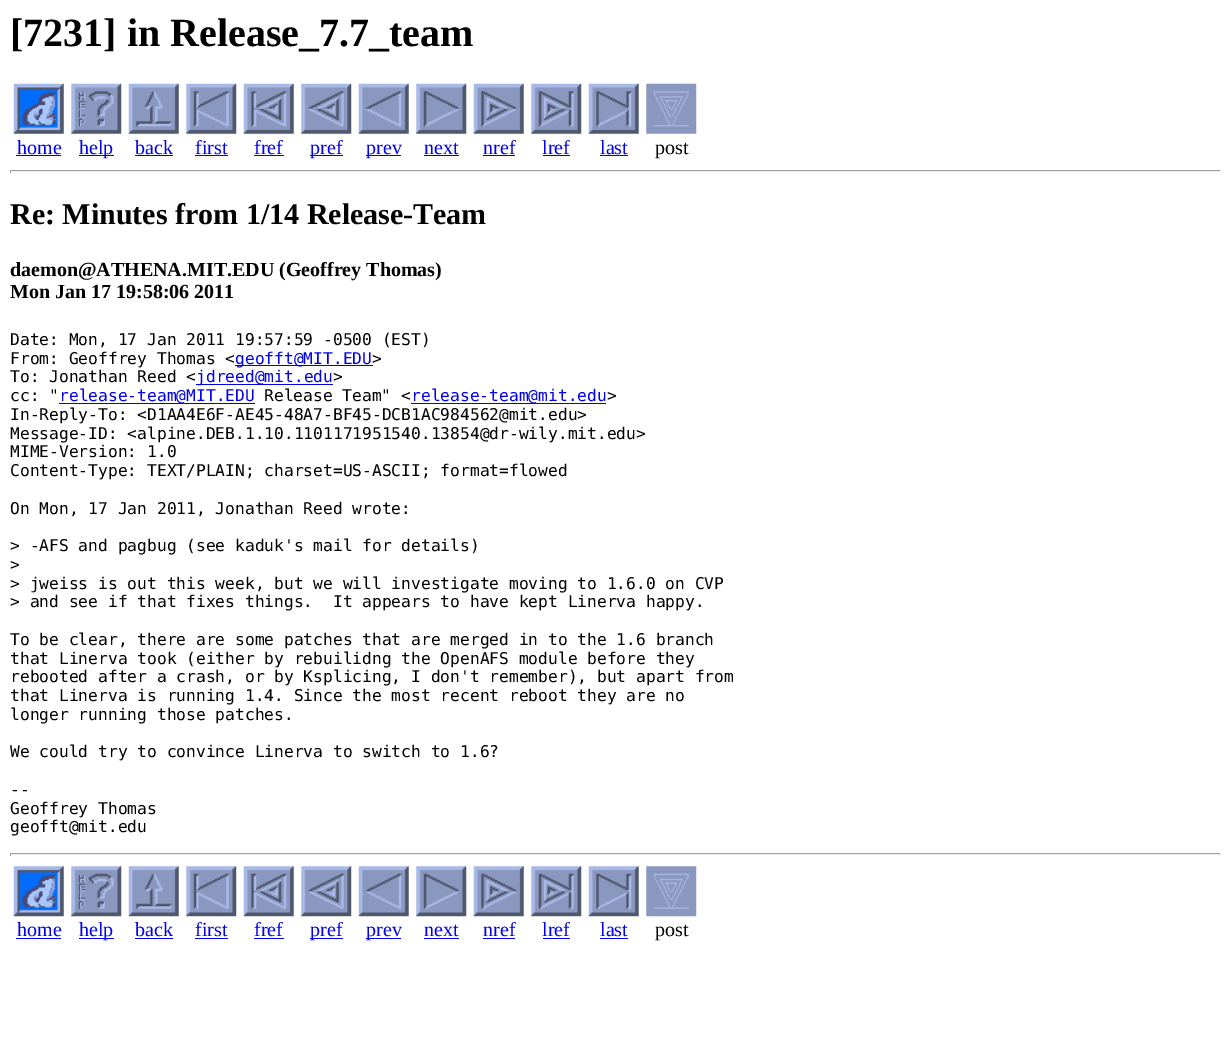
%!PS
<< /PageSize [1231 1050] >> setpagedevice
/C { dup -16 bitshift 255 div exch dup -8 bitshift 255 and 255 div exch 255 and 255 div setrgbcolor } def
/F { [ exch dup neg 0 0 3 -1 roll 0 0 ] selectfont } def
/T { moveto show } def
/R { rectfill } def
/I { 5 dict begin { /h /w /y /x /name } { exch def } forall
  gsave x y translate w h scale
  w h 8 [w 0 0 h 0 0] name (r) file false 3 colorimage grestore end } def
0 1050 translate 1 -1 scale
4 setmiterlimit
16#FFFFFF C
0 0 1231 1050 R
/LiberationSerif-Bold 40 F
16#000000 C
([7231] in Release_7.7_team) 10 46 T
(1.rgb) 13 83 51 51 I
(2.rgb) 71 83 51 51 I
(3.rgb) 128 83 51 51 I
(4.rgb) 186 83 51 51 I
(5.rgb) 243 83 51 51 I
(6.rgb) 301 83 51 51 I
(7.rgb) 358 83 51 51 I
(8.rgb) 416 83 51 51 I
(9.rgb) 473 83 51 51 I
(10.rgb) 531 83 51 51 I
(11.rgb) 588 83 51 51 I
(12.rgb) 646 83 51 51 I
/LiberationSerif-Regular 20 F
16#0000EE C
(home) 17 154 T
16 155 45 1 R
79 155 35 1 R
(help) 79 154 T
(back) 135 154 T
135 155 38 1 R
(first) 195 154 T
195 155 33 1 R
(fref) 254 154 T
254 155 30 1 R
310 155 33 1 R
(pref) 310 154 T
366 155 35 1 R
(prev) 366 154 T
(next) 424 154 T
424 155 35 1 R
(nref) 483 154 T
483 155 32 1 R
(lref) 542 154 T
543 155 27 1 R
(last) 600 154 T
600 155 28 1 R
16#000000 C
(post) 655 154 T
16#9F9F9F C
10 170 1211 1 R
16#EEEEEE C
1220 170 1 3 R
10 171 1211 1 R
16#9F9F9F C
10 170 1 3 R
/LiberationSerif-Bold 30 F
16#000000 C
(Re: Minutes from 1/14 Release-Team) 10 224 T
/LiberationSerif-Bold 20 F
(daemon@ATHENA.MIT.EDU \(Geoffrey Thomas\)) 10 276 T
(Mon Jan 17 19:58:06 2011) 10 298 T
/DejaVuSansMono-Regular 16.25 F
(Date: Mon, 17 Jan 2011 19:57:59 -0500 \(EST\)) 10 345 T
(From: Geoffrey Thomas <) 10 364 T
16#0000EE C
235 365 138 1 R
(geofft@MIT.EDU) 235 364 T
16#000000 C
(>) 372 364 T
(To: Jonathan Reed <) 10 382 T
16#0000EE C
196 384 137 1 R
(jdreed@mit.edu) 196 382 T
16#000000 C
(>) 333 382 T
(cc: ") 10 401 T
16#0000EE C
59 403 196 1 R
(release-team@MIT.EDU) 59 401 T
16#000000 C
(Release Team" <) 264 401 T
16#0000EE C
411 403 195 1 R
(release-team@mit.edu) 411 401 T
16#000000 C
(>) 607 401 T
(In-Reply-To: <D1AA4E6F-AE45-48A7-BF45-DCB1AC984562@mit.edu>) 10 420 T
(Message-ID: <alpine.DEB.1.10.1101171951540.13854@dr-wily.mit.edu>) 10 439 T
(MIME-Version: 1.0) 10 457 T
(Content-Type: TEXT/PLAIN; charset=US-ASCII; format=flowed) 10 476 T
(On Mon, 17 Jan 2011, Jonathan Reed wrote:) 10 514 T
(> -AFS and pagbug \(see kaduk's mail for details\)) 10 551 T
(>) 10 570 T
(> jweiss is out this week, but we will investigate moving to 1.6.0 on CVP) 10 589 T
(> and see if that fixes things.  It appears to have kept Linerva happy.) 10 607 T
(To be clear, there are some patches that are merged in to the 1.6 branch) 10 645 T
(that Linerva took \(either by rebuilidng the OpenAFS module before they) 10 664 T
(rebooted after a crash, or by Ksplicing, I don't remember\), but apart from) 10 682 T
(that Linerva is running 1.4. Since the most recent reboot they are no) 10 701 T
(longer running those patches.) 10 720 T
(We could try to convince Linerva to switch to 1.6?) 10 757 T
(--) 10 795 T
(Geoffrey Thomas) 10 814 T
(geofft@mit.edu) 10 832 T
16#9F9F9F C
10 853 1211 1 R
16#EEEEEE C
1220 853 1 3 R
10 854 1211 1 R
16#9F9F9F C
10 853 1 3 R
(13.rgb) 13 866 51 51 I
(14.rgb) 71 866 51 51 I
(15.rgb) 128 866 51 51 I
(16.rgb) 186 866 51 51 I
(17.rgb) 243 866 51 51 I
(18.rgb) 301 866 51 51 I
(19.rgb) 358 866 51 51 I
(20.rgb) 416 866 51 51 I
(21.rgb) 473 866 51 51 I
(22.rgb) 531 866 51 51 I
(23.rgb) 588 866 51 51 I
(24.rgb) 646 866 51 51 I
/LiberationSerif-Regular 20 F
16#0000EE C
(home) 17 936 T
16 938 45 1 R
79 938 35 1 R
(help) 79 936 T
(back) 135 936 T
135 938 38 1 R
(first) 195 936 T
195 938 33 1 R
(fref) 254 936 T
254 938 30 1 R
310 938 33 1 R
(pref) 310 936 T
366 938 35 1 R
(prev) 366 936 T
(next) 424 936 T
424 938 35 1 R
(nref) 483 936 T
483 938 32 1 R
(lref) 542 936 T
543 938 27 1 R
(last) 600 936 T
600 938 28 1 R
16#000000 C
(post) 655 936 T
showpage
